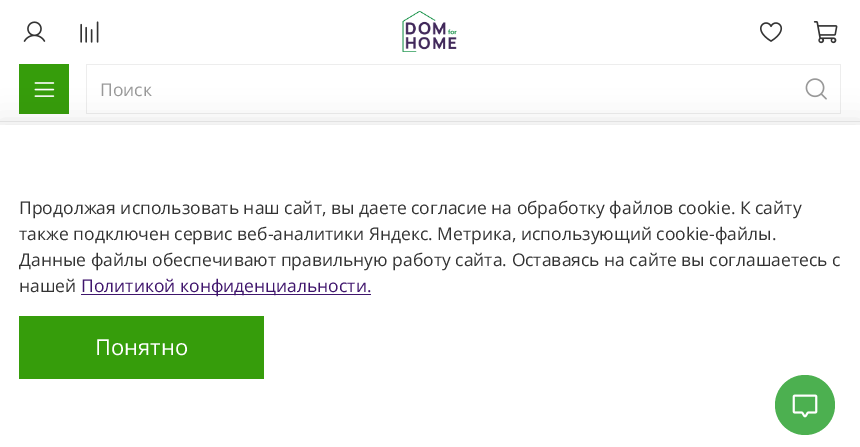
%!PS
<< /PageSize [860 447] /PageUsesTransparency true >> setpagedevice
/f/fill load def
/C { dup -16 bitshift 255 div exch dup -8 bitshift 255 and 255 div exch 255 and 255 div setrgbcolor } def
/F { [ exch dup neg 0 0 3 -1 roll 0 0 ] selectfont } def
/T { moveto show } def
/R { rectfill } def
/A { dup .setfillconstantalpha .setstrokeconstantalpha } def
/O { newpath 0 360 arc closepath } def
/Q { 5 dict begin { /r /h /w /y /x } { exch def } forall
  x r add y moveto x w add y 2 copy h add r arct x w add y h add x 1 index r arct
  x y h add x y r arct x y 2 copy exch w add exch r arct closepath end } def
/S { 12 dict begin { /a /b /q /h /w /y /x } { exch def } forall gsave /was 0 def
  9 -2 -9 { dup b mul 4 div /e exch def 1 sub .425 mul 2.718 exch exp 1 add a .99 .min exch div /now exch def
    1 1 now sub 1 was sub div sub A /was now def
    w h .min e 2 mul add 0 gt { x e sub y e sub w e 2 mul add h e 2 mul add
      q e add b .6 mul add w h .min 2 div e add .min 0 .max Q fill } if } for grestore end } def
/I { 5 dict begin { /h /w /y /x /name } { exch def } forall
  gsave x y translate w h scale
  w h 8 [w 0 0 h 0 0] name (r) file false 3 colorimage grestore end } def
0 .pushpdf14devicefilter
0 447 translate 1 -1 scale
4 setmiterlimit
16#FFFFFF C
0 0 860 447 R
16#EDEDED C
0 121 860 1 R
(1.rgb) 23 21 23 21 I
(2.rgb) 80 21 19 22 I
(3.rgb) 402 10 55 42 I
(4.rgb) 760 22 23 20 I
(5.rgb) 813 21 25 23 I
16#369D0B C
19 64 50 50 R
(6.rgb) 34 82 21 15 I
16#EDEDED C
86 64 755 1 R
86 113 705 1 R
86 64 1 50 R
/OpenSans-Regular 17.5 F
16#999999 C
(Поиск) 100 96 T
16#EDEDED C
840 64 1 50 R
791 113 50 1 R
(7.rgb) 805 78 22 22 I
16#000000 C
-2 121 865 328 0 14.5 .09 S
16#FFFFFF C
0 125 860 322 R
16#333333 C
(Продолжая использовать наш сайт, вы даете согласие на обработку файлов cookie. К cайту) 19 214 T
(также подключен сервис веб-аналитики Яндекс. Метрика, использующий cookie-файлы.) 19 240 T
(Данные файлы обеспечивают правильную работу сайта. Оставаясь на сайте вы соглашаетесь с) 19 266 T
(нашей) 19 292 T
16#3F156C C
81 294 290 1 R
(Политикой конфиденциальности.) 81 292 T
16#369D0B C
19 316 245 63 R
/OpenSans-Regular 22 F
16#FFFFFF C
(Понятно) 95 355 T
16#4CB050 C
805 405 30 O f
(8.rgb) 792 394 26 24 I
.poppdf14devicefilter showpage
